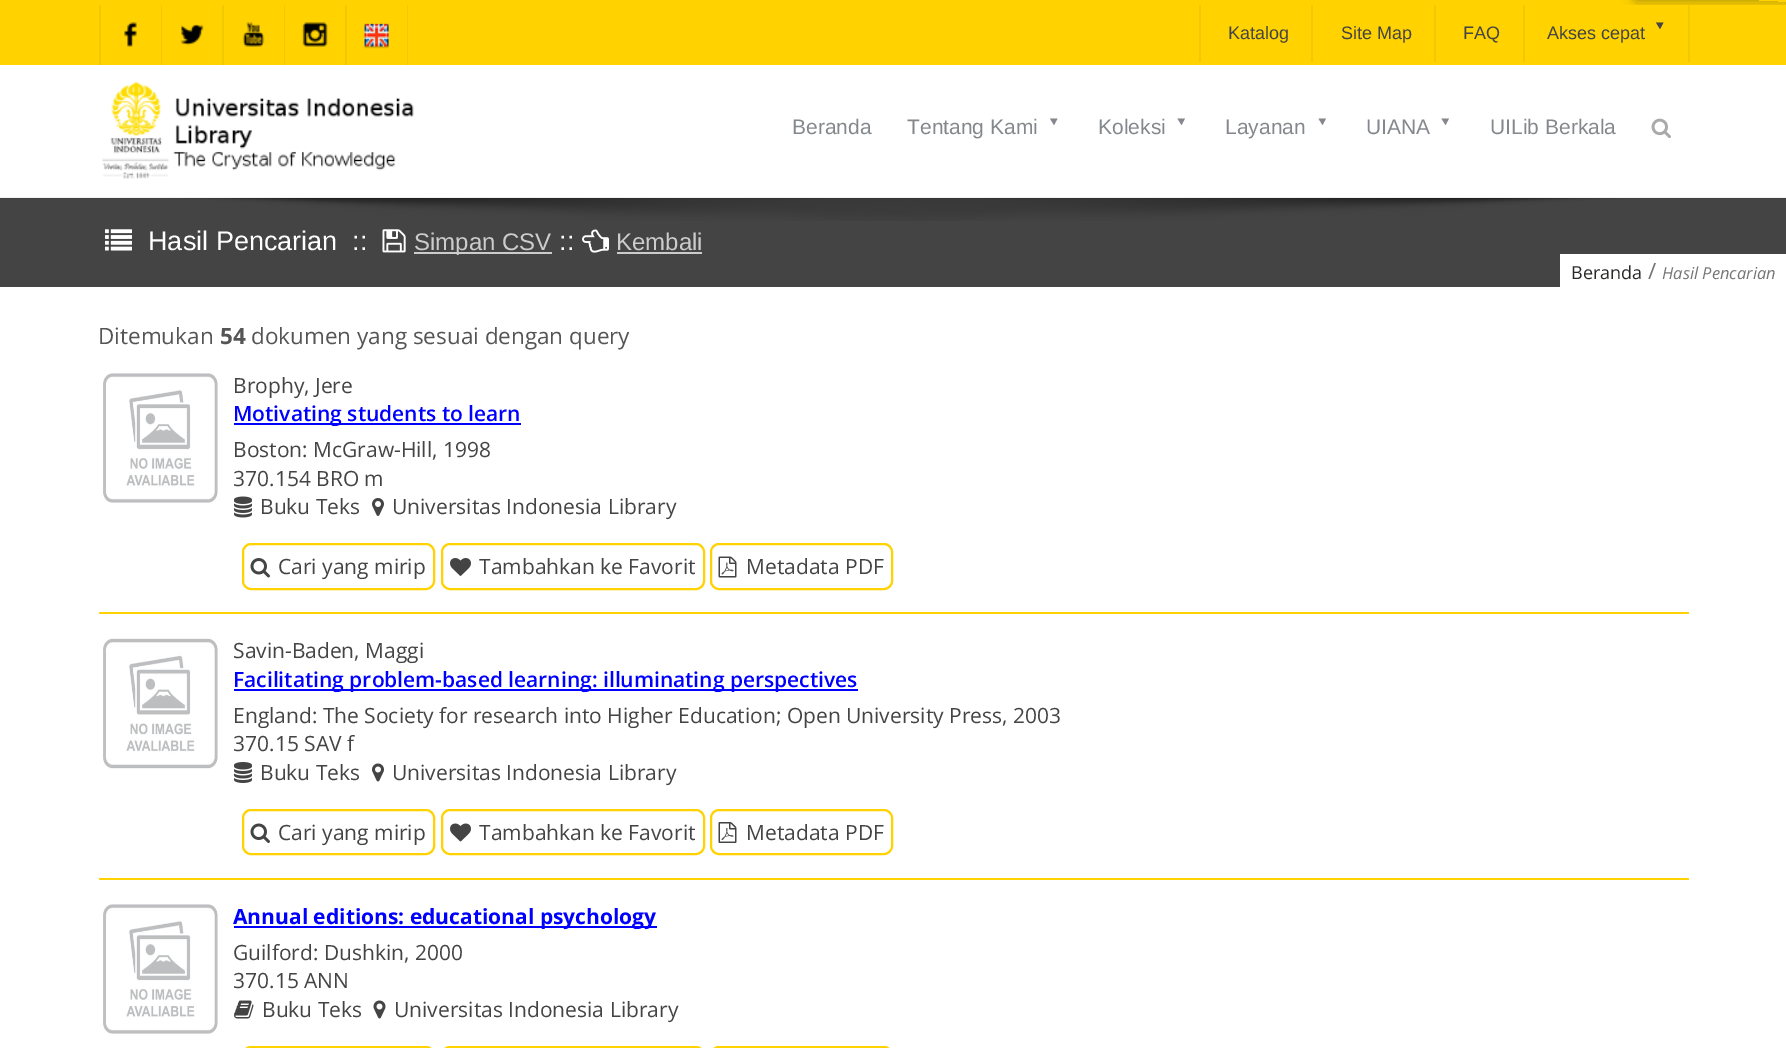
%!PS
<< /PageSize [1786 1048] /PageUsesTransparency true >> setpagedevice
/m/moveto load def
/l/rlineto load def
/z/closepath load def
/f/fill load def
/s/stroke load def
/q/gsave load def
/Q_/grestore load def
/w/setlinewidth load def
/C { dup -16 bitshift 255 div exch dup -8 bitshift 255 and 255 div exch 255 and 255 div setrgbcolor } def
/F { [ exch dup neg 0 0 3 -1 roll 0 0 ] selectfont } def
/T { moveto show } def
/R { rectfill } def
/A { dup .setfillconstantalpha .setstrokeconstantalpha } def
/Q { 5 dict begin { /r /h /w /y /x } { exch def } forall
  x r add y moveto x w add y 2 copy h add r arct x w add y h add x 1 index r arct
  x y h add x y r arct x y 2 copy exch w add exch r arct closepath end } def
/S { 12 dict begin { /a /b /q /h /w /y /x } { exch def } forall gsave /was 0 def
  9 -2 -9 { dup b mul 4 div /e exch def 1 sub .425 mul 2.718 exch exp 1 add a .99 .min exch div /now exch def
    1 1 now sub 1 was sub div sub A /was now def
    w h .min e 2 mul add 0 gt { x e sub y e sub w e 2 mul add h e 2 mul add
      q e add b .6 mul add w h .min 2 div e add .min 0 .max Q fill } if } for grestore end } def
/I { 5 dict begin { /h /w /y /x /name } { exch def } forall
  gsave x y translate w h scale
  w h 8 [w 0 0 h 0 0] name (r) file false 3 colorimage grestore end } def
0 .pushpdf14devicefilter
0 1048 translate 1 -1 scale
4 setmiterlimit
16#FFFFFF C
0 0 1786 1048 R
16#FFD200 C
0 0 1786 65 R
16#F2C800 C
1688 5 2 57 R
q
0 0 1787 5 rectclip
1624 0 m 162 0 l 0 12 l -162 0 l z 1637 -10 m 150 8 l -.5 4.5 l -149.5 -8 l z eoclip newpath
16#B29909 C
1637 -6 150 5 0 4 1 S
Q_
16#444444 C
1663.5 22.5 m -3.5 6.5 l -4 -6.5 l z f
q
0 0 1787 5 rectclip
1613 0 m 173 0 l 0 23 l -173 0 l z 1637 -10 m 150 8 l -.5 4.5 l -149.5 -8 l z eoclip newpath
16#B29909 C
1637 -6 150 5 0 7.5 1 S
Q_
16#F2C800 C
99 5 2 60 R
161 5 1 60 R
(1.rgb) 124 22 13 25 I
222 5 2 60 R
(2.rgb) 180 24 24 22 I
284 5 1 60 R
(3.rgb) 242 22 23 25 I
345 5 2 60 R
(4.rgb) 302 22 26 25 I
407 5 1 60 R
(5.rgb) 364 23 25 26 I
1199 5 2 57 R
/LiberationSans-Regular 18 F
16#444444 C
(Katalog) 1228 39 T
16#F2C800 C
1311 5 2 57 R
16#444444 C
(Site Map) 1341 39 T
16#F2C800 C
1434 5 2 57 R
16#444444 C
(FAQ) 1463 39 T
16#F2C800 C
1523 5 2 57 R
16#444444 C
(Akses cepat) 1547 39 T
0 198 1786 89 R
(8.rgb) 172 198 1453 23 I
0.05 A
16#000000 C
0 197 1786 2 R
1 A
(6.rgb) 102 81 312 98 I
/LiberationSans-Regular 21 F
16#84888D C
(Beranda) 792 134 T
(Tentang Kami) 907 134 T
1057.5 118.5 m -3.5 6.5 l -4 -6.5 l z f
(Koleksi) 1098 134 T
1185 118.5 m -3.5 6.5 l -4 -6.5 l z f
(Layanan) 1225 134 T
1326 118.5 m -3.5 6.5 l -4 -6.5 l z f
(UIANA) 1366 134 T
1449 118.5 m -3.5 6.5 l -4 -6.5 l z f
(UILib Berkala) 1490 134 T
(7.rgb) 1651 118 20 21 I
(9.rgb) 105 229 27 22 I
/LiberationSans-Regular 27 F
16#FFFFFF C
(Hasil Pencarian  ::) 148 250 T
(10.rgb) 382 229 24 24 I
16#CCCCCC C
414 252 138 2 R
/LiberationSans-Regular 24 F
(Simpan CSV) 414 250 T
/LiberationSans-Regular 27 F
16#FFFFFF C
(::) 559 250 T
(11.rgb) 582 229 27 24 I
/LiberationSans-Regular 24 F
16#CCCCCC C
(Kembali) 616 250 T
617 252 85 2 R
16#FFFFFF C
1560 254 226 33 R
/OpenSans-Regular 18 F
16#292928 C
(Beranda) 1571 279 T
/OpenSans-Regular 22.5 F
16#757575 C
(/) 1648 279 T
/OpenSans-Italic 16.5 F
(Hasil Pencarian) 1662 279 T
/OpenSans-Regular 22.5 F
16#555555 C
(Ditemukan) 98 344 T
/OpenSans-Bold 22.5 F
(54) 220 344 T
/OpenSans-Regular 22.5 F
(dokumen yang sesuai dengan query) 251 344 T
(12.rgb) 103 373 115 130 I
/OpenSans-Regular 21 F
16#444444 C
(Brophy, Jere) 233 393 T
16#0000FF C
234 423 287 2 R
/OpenSans-SemiBold 21 F
(Motivating students to learn) 233 421 T
/OpenSans-Regular 21 F
16#444444 C
(Boston: McGraw-Hill, 1998) 233 457 T
(370.154 BRO m) 233 486 T
(13.rgb) 234 496 18 22 I
(Buku Teks) 260 514 T
(14.rgb) 372 498 12 18 I
(Universitas Indonesia Library) 392 514 T
16#FFD200 C
2 w
243 544 191 45 8 Q s
(15.rgb) 250 558 20 20 I
16#444444 C
(Cari yang mirip) 278 574 T
16#FFD200 C
442 544 262 45 8 Q s
(16.rgb) 450 558 21 18 I
16#444444 C
(Tambahkan ke Favorit) 479 574 T
16#FFD200 C
711 544 181 45 8 Q s
(17.rgb) 718 556 19 22 I
16#444444 C
(Metadata PDF) 746 574 T
16#FFD200 C
99 612 1590 2 1 Q f
(18.rgb) 103 638 115 131 I
16#444444 C
(Savin-Baden, Maggi) 233 658 T
16#0000FF C
234 689 624 2 R
/OpenSans-SemiBold 21 F
(Facilitating problem-based learning: illuminating perspectives) 233 687 T
/OpenSans-Regular 21 F
16#444444 C
(England: The Society for research into Higher Education; Open University Press, 2003) 233 723 T
(370.15 SAV f) 233 751 T
(19.rgb) 234 762 18 21 I
(Buku Teks) 260 780 T
(20.rgb) 372 763 12 19 I
(Universitas Indonesia Library) 392 780 T
16#FFD200 C
243 810 191 44 8 Q s
(21.rgb) 250 823 20 20 I
16#444444 C
(Cari yang mirip) 278 840 T
16#FFD200 C
442 810 262 44 8 Q s
(22.rgb) 450 823 21 19 I
16#444444 C
(Tambahkan ke Favorit) 479 840 T
16#FFD200 C
711 810 181 44 8 Q s
(23.rgb) 718 822 19 21 I
16#444444 C
(Metadata PDF) 746 840 T
16#FFD200 C
99 878 1590 2 1 Q f
(12.rgb) 103 904 115 130 I
16#0000FF C
234 926 423 2 R
/OpenSans-Bold 21 F
(Annual editions: educational psychology) 233 924 T
/OpenSans-Regular 21 F
16#444444 C
(Guilford: Dushkin, 2000) 233 960 T
(370.15 ANN) 233 988 T
(24.rgb) 234 1000 20 19 I
(Buku Teks) 262 1017 T
(25.rgb) 373 1000 13 19 I
(Universitas Indonesia Library) 394 1017 T
16#FFD200 C
243 1047 191 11 8 Q s
442 1047 262 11 8 Q s
711 1047 181 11 8 Q s
.poppdf14devicefilter showpage
